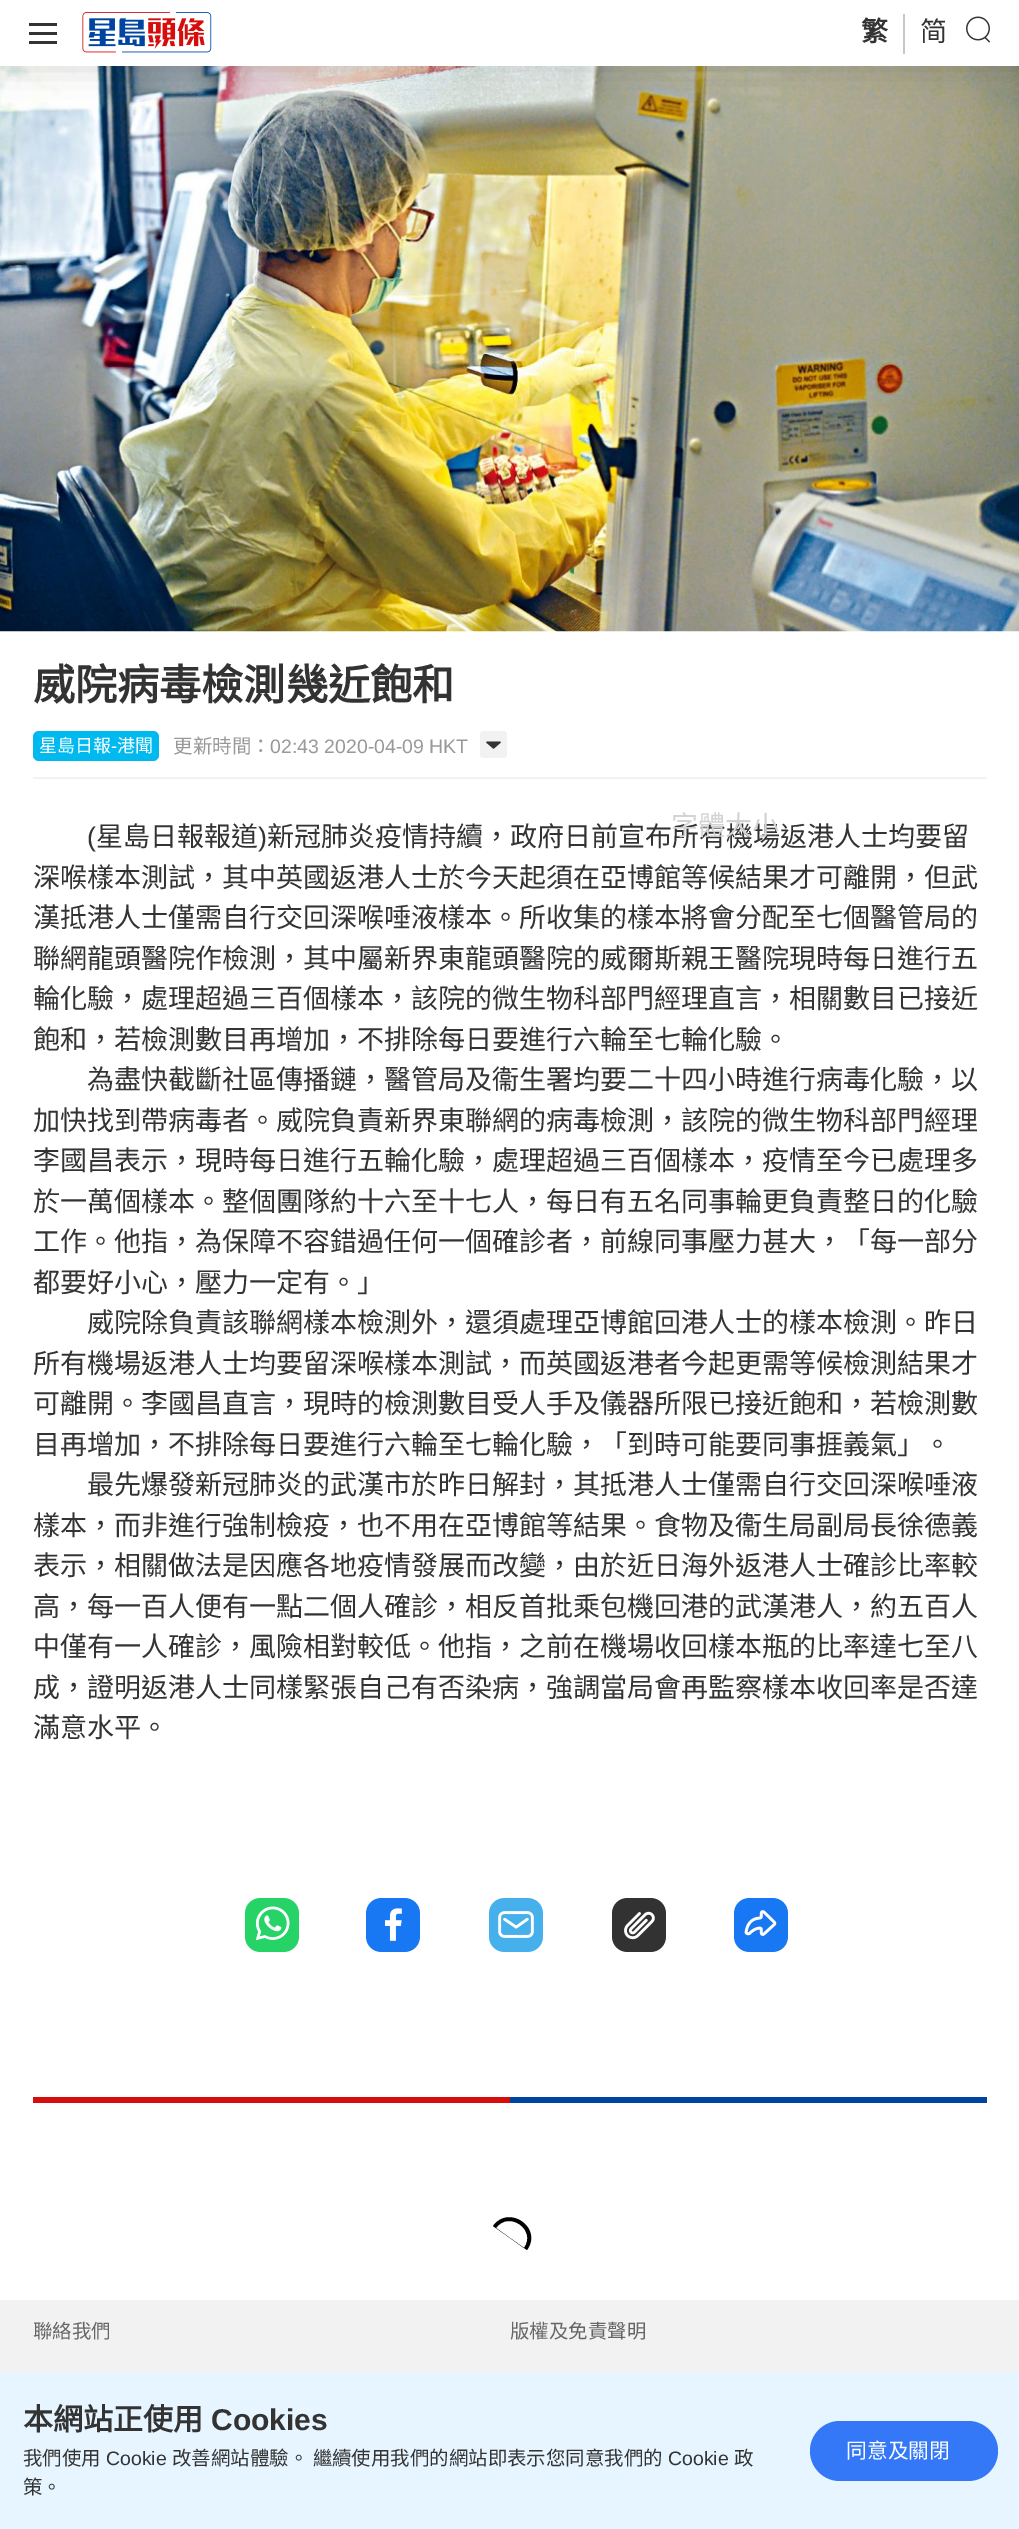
%!PS
<< /PageSize [1019 2529] /PageUsesTransparency true >> setpagedevice
/m/moveto load def
/c/rcurveto load def
/f/fill load def
/C { dup -16 bitshift 255 div exch dup -8 bitshift 255 and 255 div exch 255 and 255 div setrgbcolor } def
/F { [ exch dup neg 0 0 3 -1 roll 0 0 ] selectfont } def
/T { moveto show } def
/R { rectfill } def
/A { dup .setfillconstantalpha .setstrokeconstantalpha } def
/Q { 5 dict begin { /r /h /w /y /x } { exch def } forall
  x r add y moveto x w add y 2 copy h add r arct x w add y h add x 1 index r arct
  x y h add x y r arct x y 2 copy exch w add exch r arct closepath end } def
/S { 12 dict begin { /a /b /q /h /w /y /x } { exch def } forall gsave /was 0 def
  9 -2 -9 { dup b mul 4 div /e exch def 1 sub .425 mul 2.718 exch exp 1 add a .99 .min exch div /now exch def
    1 1 now sub 1 was sub div sub A /was now def
    w h .min e 2 mul add 0 gt { x e sub y e sub w e 2 mul add h e 2 mul add
      q e add b .6 mul add w h .min 2 div e add .min 0 .max Q fill } if } for grestore end } def
/I { 5 dict begin { /h /w /y /x /name } { exch def } forall
  gsave x y translate w h scale
  w h 8 [w 0 0 h 0 0] name (r) file false 3 colorimage grestore end } def
0 .pushpdf14devicefilter
0 2529 translate 1 -1 scale
4 setmiterlimit
16#FFFFFF C
0 0 1019 2529 R
(3.rgb) 0 66 1019 566 I
16#000000 C
0 2 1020 66 0 18 .15 S
16#FFFFFF C
0 0 1019 66 R
16#333333 C
29 23 28 3 R
29 32 28 3 R
29 41 28 3 R
(1.rgb) 82 12 130 41 I
16#C7C7C7 C
903 14 2 40 R
/NotoSansCJKHK-Bold 27 F
16#333333 C
(繁) 861 41 T
/NotoSansCJKHK-Regular 27 F
(简) 920 41 T
(2.rgb) 966 16 24 27 I
/NotoSansCJKHK-Bold 42.1 F
(威院病毒檢測幾近飽和) 33 700 T
16#F2F2F2 C
33 777 954 2 R
16#00B9EF C
33 731 126 30 6 Q f
/NotoSansCJKHK-Regular 18 F
16#FFFFFF C
(星島日報) 39 752 T
/LiberationSans-Regular 18 F
(-) 111 752 T
/NotoSansCJKHK-Regular 18 F
(港聞) 117 752 T
/NotoSansCJKHK-Regular 19.5 F
16#999999 C
(更新時間：) 173 753 T
/LiberationSans-Regular 19.5 F
(02:43 2020-04-09 HKT) 270 753 T
(4.rgb) 480 731 27 27 I
/NotoSansCJKHK-Regular 27 F
16#333333 C
(新冠肺炎疫情持續，政府日前宣布所有機場返港人士均要留) 267 846 T
16#D3D3D3 C
(字體大小) 671 835 T
/LiberationSans-Regular 27 F
16#333333 C
(\() 87 846 T
/NotoSansCJKHK-Regular 27 F
(星島日報報道) 96 846 T
/LiberationSans-Regular 27 F
(\)) 258 846 T
/NotoSansCJKHK-Regular 27 F
(深喉樣本測試，其中英國返港人士於今天起須在亞博館等候結果才可離開，但武) 33 887 T
(漢抵港人士僅需自行交回深喉唾液樣本。所收集的樣本將會分配至七個醫管局的) 33 927 T
(聯網龍頭醫院作檢測，其中屬新界東龍頭醫院的威爾斯親王醫院現時每日進行五) 33 968 T
(輪化驗，處理超過三百個樣本，該院的微生物科部門經理直言，相關數目已接近) 33 1008 T
(飽和，若檢測數目再增加，不排除每日要進行六輪至七輪化驗。) 33 1049 T
(為盡快截斷社區傳播鏈，醫管局及衞生署均要二十四小時進行病毒化驗，以) 87 1089 T
(加快找到帶病毒者。威院負責新界東聯網的病毒檢測，該院的微生物科部門經理) 33 1130 T
(李國昌表示，現時每日進行五輪化驗，處理超過三百個樣本，疫情至今已處理多) 33 1170 T
(於一萬個樣本。整個團隊約十六至十七人，每日有五名同事輪更負責整日的化驗) 33 1211 T
(工作。他指，為保障不容錯過任何一個確診者，前線同事壓力甚大，「每一部分) 33 1251 T
(都要好小心，壓力一定有。」) 33 1292 T
(威院除負責該聯網樣本檢測外，還須處理亞博館回港人士的樣本檢測。昨日) 87 1332 T
(所有機場返港人士均要留深喉樣本測試，而英國返港者今起更需等候檢測結果才) 33 1373 T
(可離開。李國昌直言，現時的檢測數目受人手及儀器所限已接近飽和，若檢測數) 33 1413 T
(目再增加，不排除每日要進行六輪至七輪化驗，「到時可能要同事捱義氣」。) 33 1454 T
(最先爆發新冠肺炎的武漢市於昨日解封，其抵港人士僅需自行交回深喉唾液) 87 1494 T
(樣本，而非進行強制檢疫，也不用在亞博館等結果。食物及衞生局副局長徐德義) 33 1535 T
(表示，相關做法是因應各地疫情發展而改變，由於近日海外返港人士確診比率較) 33 1575 T
(高，每一百人便有一點二個人確診，相反首批乘包機回港的武漢港人，約五百人) 33 1616 T
(中僅有一人確診，風險相對較低。他指，之前在機場收回樣本瓶的比率達七至八) 33 1656 T
(成，證明返港人士同樣緊張自己有否染病，強調當局會再監察樣本收回率是否達) 33 1697 T
(滿意水平。) 33 1737 T
(5.rgb) 245 1898 54 54 I
(6.rgb) 366 1898 54 54 I
(7.rgb) 489 1898 54 54 I
(8.rgb) 612 1898 54 54 I
(9.rgb) 734 1898 54 54 I
16#D60D0D C
33 2097 477 6 R
16#0044A1 C
510 2097 477 6 R
16#000000 C
527 2250 m 16 -22 -18 -46 -34 -24 c 496 2228 m 13 -18 41 2 28 20 c f
16#F2F2F2 C
0 2300 1019 72 R
/NotoSansCJKHK-Regular 19.45 F
16#666666 C
(聯絡我們) 33 2338 T
(版權及免責聲明) 510 2338 T
16#E6F5FF C
0 2372 1019 157 R
/NotoSansCJKHK-Bold 30 F
16#333333 C
(本網站正使用) 23 2430 T
/LiberationSans-Bold 30 F
(Cookies) 211 2430 T
/NotoSansCJKHK-Regular 19.45 F
(我們使用) 23 2465 T
/LiberationSans-Regular 19.45 F
(Cookie) 106 2465 T
/NotoSansCJKHK-Regular 19.45 F
(改善網站體驗。 繼續使用我們的網站即表示您同意我們的) 172 2465 T
/LiberationSans-Regular 19.45 F
(Cookie) 668 2465 T
/NotoSansCJKHK-Regular 19.45 F
(政) 734 2465 T
(策。) 23 2494 T
16#3478F7 C
810 2421 188 60 30 Q f
/NotoSansCJKHK-Regular 20.75 F
16#FFFFFF C
(同意及關閉) 846 2458 T
.poppdf14devicefilter showpage
